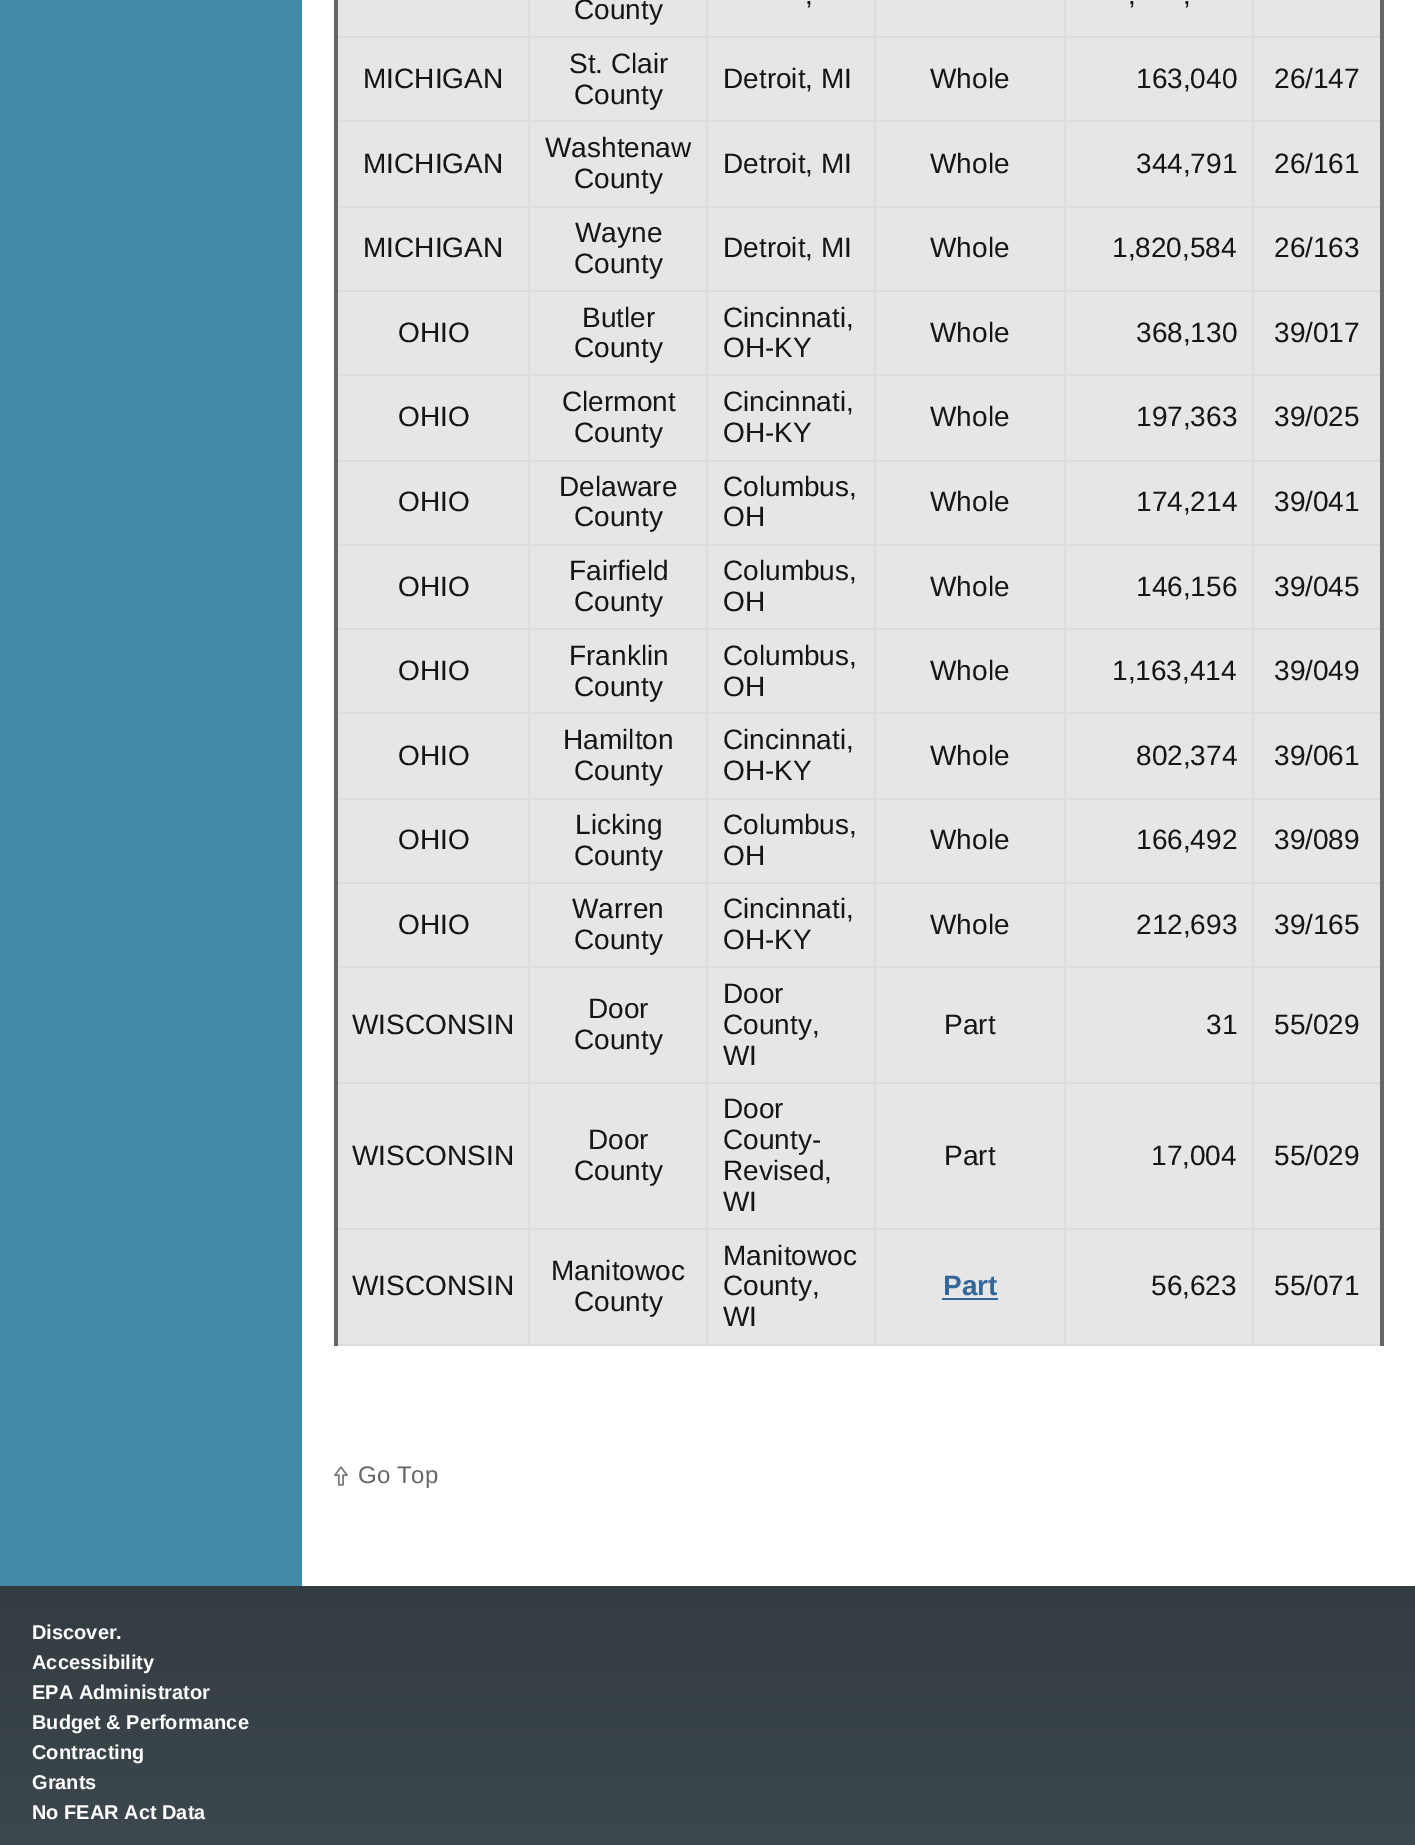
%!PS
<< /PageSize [1415 1845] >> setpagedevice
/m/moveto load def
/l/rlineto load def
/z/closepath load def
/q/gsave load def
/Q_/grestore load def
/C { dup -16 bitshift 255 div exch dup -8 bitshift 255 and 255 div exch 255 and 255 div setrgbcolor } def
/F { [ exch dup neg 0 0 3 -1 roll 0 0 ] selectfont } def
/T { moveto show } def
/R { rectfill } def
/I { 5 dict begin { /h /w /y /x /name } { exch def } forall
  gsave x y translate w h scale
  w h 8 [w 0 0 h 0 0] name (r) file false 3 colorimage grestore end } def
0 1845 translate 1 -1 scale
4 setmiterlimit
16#FFFFFF C
0 0 1415 1845 R
16#4289AA C
0 0 302 1586 R
16#DDDDDD C
334 1344 1050 2 R
16#E6E6E6 C
338 0 1042 36 R
16#DDDDDD C
1252 36 132 2 R
16#E6E6E6 C
338 38 1042 82 R
16#DDDDDD C
1252 120 132 2 R
16#E6E6E6 C
338 122 1042 84 R
16#DDDDDD C
1252 206 132 2 R
16#E6E6E6 C
338 208 1042 82 R
16#DDDDDD C
1252 290 132 2 R
16#E6E6E6 C
338 292 1042 82 R
16#DDDDDD C
1252 374 132 2 R
16#E6E6E6 C
338 376 1042 84 R
16#DDDDDD C
1252 460 132 2 R
16#E6E6E6 C
338 462 1042 82 R
16#DDDDDD C
1252 544 132 2 R
16#E6E6E6 C
338 546 1042 82 R
16#DDDDDD C
1252 628 132 2 R
16#E6E6E6 C
338 630 1042 82 R
16#DDDDDD C
1252 712 132 2 R
16#E6E6E6 C
338 714 1042 84 R
16#DDDDDD C
1252 798 132 2 R
16#E6E6E6 C
338 800 1042 82 R
16#DDDDDD C
1252 882 132 2 R
16#E6E6E6 C
338 884 1042 82 R
16#DDDDDD C
1252 966 132 2 R
16#E6E6E6 C
338 968 1042 114 R
16#DDDDDD C
1252 1082 132 2 R
16#E6E6E6 C
338 1084 1042 144 R
16#DDDDDD C
1252 1228 132 2 R
16#E6E6E6 C
338 1230 1042 114 R
16#DDDDDD C
1252 1228 2 118 R
1064 1228 190 2 R
1252 1082 2 148 R
1064 1082 190 2 R
1252 966 2 118 R
1064 966 190 2 R
1252 882 2 86 R
1064 882 190 2 R
1252 798 2 86 R
1064 798 190 2 R
1252 712 2 88 R
1064 712 190 2 R
1252 628 2 86 R
1064 628 190 2 R
1252 544 2 86 R
1064 544 190 2 R
1252 460 2 86 R
1064 460 190 2 R
1252 374 2 88 R
1064 374 190 2 R
1252 290 2 86 R
1064 290 190 2 R
1252 206 2 86 R
1064 206 190 2 R
1252 120 2 88 R
1064 120 190 2 R
1252 36 2 86 R
1064 36 190 2 R
1064 1228 2 118 R
874 1228 192 2 R
1064 1082 2 148 R
874 1082 192 2 R
1064 966 2 118 R
874 966 192 2 R
1064 882 2 86 R
874 882 192 2 R
1064 798 2 86 R
874 798 192 2 R
1064 712 2 88 R
874 712 192 2 R
1064 628 2 86 R
874 628 192 2 R
1064 544 2 86 R
874 544 192 2 R
1064 460 2 86 R
874 460 192 2 R
1064 374 2 88 R
874 374 192 2 R
1064 290 2 86 R
874 290 192 2 R
1064 206 2 86 R
874 206 192 2 R
1064 120 2 88 R
874 120 192 2 R
1064 36 2 86 R
874 36 192 2 R
874 1228 2 118 R
706 1228 170 2 R
874 1082 2 148 R
706 1082 170 2 R
874 966 2 118 R
706 966 170 2 R
874 882 2 86 R
706 882 170 2 R
874 798 2 86 R
706 798 170 2 R
874 712 2 88 R
706 712 170 2 R
874 628 2 86 R
706 628 170 2 R
874 544 2 86 R
706 544 170 2 R
874 460 2 86 R
706 460 170 2 R
874 374 2 88 R
706 374 170 2 R
874 290 2 86 R
706 290 170 2 R
874 206 2 86 R
706 206 170 2 R
874 120 2 88 R
706 120 170 2 R
874 36 2 86 R
706 36 170 2 R
706 1228 2 118 R
528 1228 180 2 R
706 1082 2 148 R
528 1082 180 2 R
706 966 2 118 R
528 966 180 2 R
706 882 2 86 R
528 882 180 2 R
706 798 2 86 R
528 798 180 2 R
706 712 2 88 R
528 712 180 2 R
706 628 2 86 R
528 628 180 2 R
706 544 2 86 R
528 544 180 2 R
706 460 2 86 R
528 460 180 2 R
706 374 2 88 R
528 374 180 2 R
706 290 2 86 R
528 290 180 2 R
706 206 2 86 R
528 206 180 2 R
706 120 2 88 R
528 120 180 2 R
706 36 2 86 R
528 36 180 2 R
528 1228 2 118 R
336 1228 194 2 R
528 1082 2 148 R
336 1082 194 2 R
528 966 2 118 R
336 966 194 2 R
528 882 2 86 R
336 882 194 2 R
528 798 2 86 R
336 798 194 2 R
528 712 2 88 R
336 712 194 2 R
528 628 2 86 R
336 628 194 2 R
528 544 2 86 R
336 544 194 2 R
528 460 2 86 R
336 460 194 2 R
528 374 2 88 R
336 374 194 2 R
528 290 2 86 R
336 290 194 2 R
528 206 2 86 R
336 206 194 2 R
528 120 2 88 R
336 120 194 2 R
528 36 2 86 R
336 36 194 2 R
528 0 2 38 R
/LiberationSans-Regular 28 F
16#151515 C
(County) 574 19 T
16#DDDDDD C
706 0 2 38 R
16#151515 C
(,) 805 4 T
16#DDDDDD C
874 0 2 38 R
1064 0 2 38 R
16#151515 C
(,) 1128 4 T
(,) 1183 4 T
16#DDDDDD C
1252 0 2 38 R
16#151515 C
(MICHIGAN) 363 88 T
(St. Clair) 569 73 T
(County) 574 104 T
(Detroit, MI) 723 88 T
(Whole) 930 88 T
(163,040) 1136 88 T
(26/147) 1274 88 T
(MICHIGAN) 363 173 T
(Washtenaw) 545 157 T
(County) 574 188 T
(Detroit, MI) 723 173 T
(Whole) 930 173 T
(344,791) 1136 173 T
(26/161) 1274 173 T
(MICHIGAN) 363 257 T
(Wayne) 575 242 T
(County) 574 273 T
(Detroit, MI) 723 257 T
(Whole) 930 257 T
(1,820,584) 1112 257 T
(26/163) 1274 257 T
(OHIO) 398 342 T
(Butler) 582 327 T
(County) 574 357 T
(Cincinnati,) 723 327 T
(OH-KY) 723 357 T
(Whole) 930 342 T
(368,130) 1136 342 T
(39/017) 1274 342 T
(OHIO) 398 426 T
(Clermont) 562 411 T
(County) 574 442 T
(Cincinnati,) 723 411 T
(OH-KY) 723 442 T
(Whole) 930 426 T
(197,363) 1136 426 T
(39/025) 1274 426 T
(OHIO) 398 511 T
(Delaware) 559 496 T
(County) 574 526 T
(Columbus,) 723 496 T
(OH) 723 526 T
(Whole) 930 511 T
(174,214) 1136 511 T
(39/041) 1274 511 T
(OHIO) 398 596 T
(Fairfield) 569 580 T
(County) 574 611 T
(Columbus,) 723 580 T
(OH) 723 611 T
(Whole) 930 596 T
(146,156) 1136 596 T
(39/045) 1274 596 T
(OHIO) 398 680 T
(Franklin) 569 665 T
(County) 574 696 T
(Columbus,) 723 665 T
(OH) 723 696 T
(Whole) 930 680 T
(1,163,414) 1112 680 T
(39/049) 1274 680 T
(OHIO) 398 765 T
(Hamilton) 563 749 T
(County) 574 780 T
(Cincinnati,) 723 749 T
(OH-KY) 723 780 T
(Whole) 930 765 T
(802,374) 1136 765 T
(39/061) 1274 765 T
(OHIO) 398 849 T
(Licking) 575 834 T
(County) 574 865 T
(Columbus,) 723 834 T
(OH) 723 865 T
(Whole) 930 849 T
(166,492) 1136 849 T
(39/089) 1274 849 T
(OHIO) 398 934 T
(Warren) 572 918 T
(County) 574 949 T
(Cincinnati,) 723 918 T
(OH-KY) 723 949 T
(Whole) 930 934 T
(212,693) 1136 934 T
(39/165) 1274 934 T
(WISCONSIN) 352 1034 T
(Door) 588 1018 T
(County) 574 1049 T
(Door) 723 1003 T
(County,) 723 1034 T
(WI) 723 1065 T
(Part) 944 1034 T
(31) 1206 1034 T
(55/029) 1274 1034 T
(WISCONSIN) 352 1165 T
(Door) 588 1149 T
(County) 574 1180 T
(Door) 723 1118 T
(County-) 723 1149 T
(Revised,) 723 1180 T
(WI) 723 1211 T
(Part) 944 1165 T
(17,004) 1151 1165 T
(55/029) 1274 1165 T
16#666666 C
334 0 4 1346 R
16#151515 C
(WISCONSIN) 352 1295 T
(Manitowoc) 551 1280 T
(County) 574 1311 T
(Manitowoc) 723 1265 T
(County,) 723 1295 T
(WI) 723 1326 T
/LiberationSans-Bold 28 F
16#336699 C
(Part) 943 1295 T
942 1298 56 2 R
/LiberationSans-Regular 28 F
16#151515 C
(56,623) 1151 1295 T
16#666666 C
1380 0 4 1346 R
16#151515 C
(55/071) 1274 1295 T
(1.rgb) 334 1466 14 20 I
/LiberationSans-Regular 24 F
16#666666 C
(Go Top) 358 1483 T
q 0 1586 m 1415 0 l 0 259 l -1415 0 l z clip newpath
<< /ShadingType 2 /ColorSpace /DeviceRGB /Coords [708 1586 708 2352] /Extend [true true] /Function << /FunctionType 2 /Domain [0 1] /C0 [.2 .235 .255] /C1 [.31 .376 .404] /N 1 >> >> shfill Q_
/LiberationSans-Bold 20 F
16#FFFFFF C
(Discover.) 32 1639 T
(Accessibility) 32 1669 T
(EPA Administrator) 32 1699 T
(Budget & Performance) 32 1729 T
(Contracting) 32 1759 T
(Grants) 32 1789 T
(No FEAR Act Data) 32 1819 T
showpage
